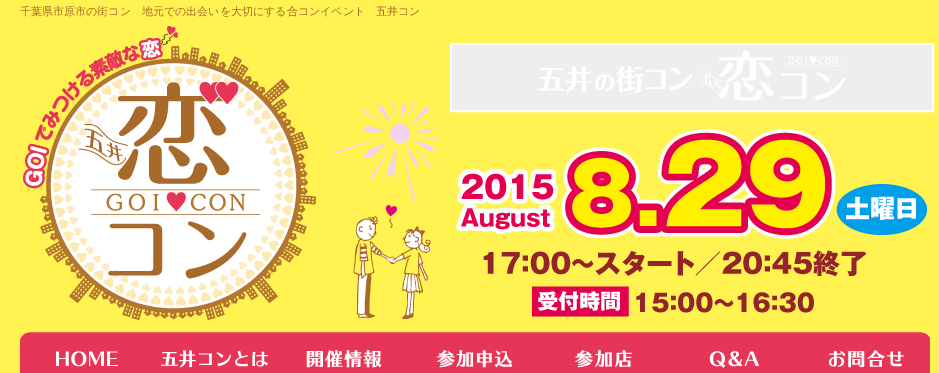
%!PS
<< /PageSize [939 373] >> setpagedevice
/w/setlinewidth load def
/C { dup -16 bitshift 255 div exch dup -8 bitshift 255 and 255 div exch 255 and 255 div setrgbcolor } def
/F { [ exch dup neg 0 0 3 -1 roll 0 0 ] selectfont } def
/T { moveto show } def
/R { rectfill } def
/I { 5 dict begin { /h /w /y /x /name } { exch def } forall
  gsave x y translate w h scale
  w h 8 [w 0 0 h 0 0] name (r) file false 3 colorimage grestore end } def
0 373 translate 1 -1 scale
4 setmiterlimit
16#FFF251 C
0 0 939 373 R
/WenQuanYiZenHei-Medium 11 F
16#A86A2A C
(千葉県市原市の街コン　地元での出会いを大切にする合コンイベント　五井コン) 20 15 T
(1.rgb) 332 99 595 220 I
(2.rgb) 23 26 293 294 I
16#FFFFFF C
2 w
451 44 482 67 rectstroke
(3.rgb) 452 45 480 65 I
(4.rgb) 20 332 910 41 I
(5.rgb) 20 332 130 9 I
16#EB6555 C
150 332 650 1 R
(6.rgb) 800 332 130 6 I
showpage
